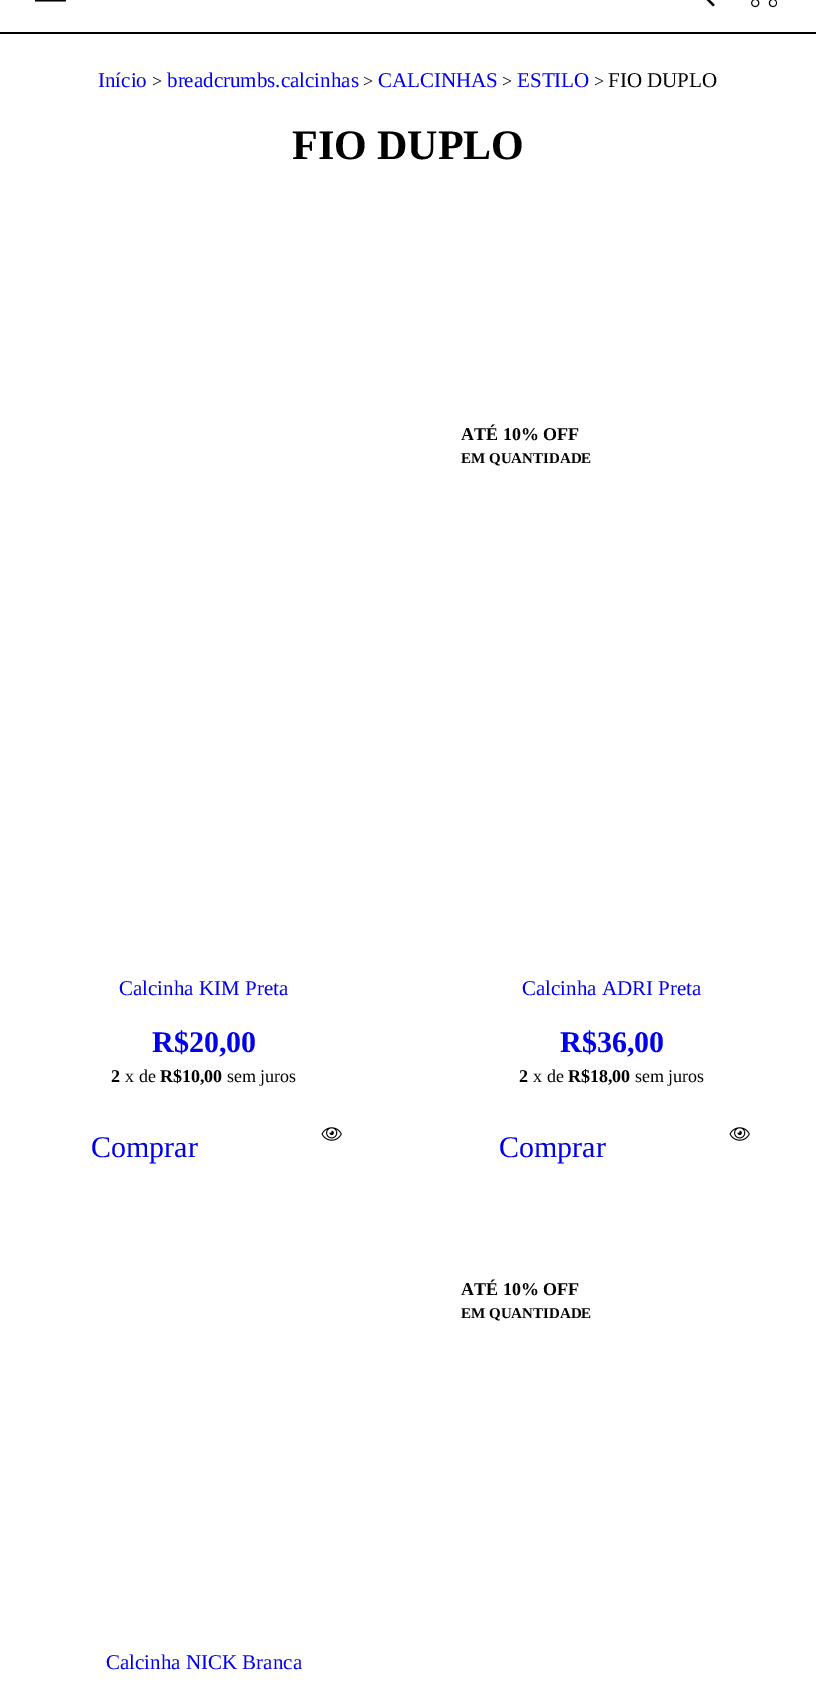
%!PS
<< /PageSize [816 1697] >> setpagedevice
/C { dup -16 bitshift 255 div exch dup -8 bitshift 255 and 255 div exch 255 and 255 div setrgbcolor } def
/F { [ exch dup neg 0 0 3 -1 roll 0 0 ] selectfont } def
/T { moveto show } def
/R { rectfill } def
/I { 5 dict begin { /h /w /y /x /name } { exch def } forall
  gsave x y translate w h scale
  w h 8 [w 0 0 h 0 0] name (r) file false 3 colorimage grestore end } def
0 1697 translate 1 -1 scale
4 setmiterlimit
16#FFFFFF C
0 0 816 1697 R
(1.rgb) 35 0 31 2 I
(2.rgb) 706 0 9 7 I
(3.rgb) 751 0 27 8 I
16#000000 C
0 32 816 2 R
/LiberationSerif-Regular 21 F
16#0000EE C
(Início) 98 87 T
/LiberationSerif-Regular 18 F
16#000000 C
(>) 152 87 T
/LiberationSerif-Regular 21 F
16#0000EE C
(breadcrumbs.calcinhas) 167 87 T
/LiberationSerif-Regular 18 F
16#000000 C
(>) 363 87 T
/LiberationSerif-Regular 21 F
16#0000EE C
(CALCINHAS) 378 87 T
/LiberationSerif-Regular 18 F
16#000000 C
(>) 502 87 T
/LiberationSerif-Regular 21 F
16#0000EE C
(ESTILO) 517 87 T
/LiberationSerif-Regular 18 F
16#000000 C
(>) 594 87 T
/LiberationSerif-Regular 21 F
(FIO DUPLO) 608 87 T
/LiberationSerif-Bold 42 F
(FIO DUPLO) 292 159 T
/LiberationSerif-Regular 21 F
16#0000EE C
(Calcinha KIM Preta) 119 995 T
/LiberationSerif-Bold 30 F
(R$20,00) 152 1052 T
/LiberationSerif-Bold 18 F
16#000000 C
(2) 111 1082 T
/LiberationSerif-Regular 18 F
(x de) 125 1082 T
/LiberationSerif-Bold 18 F
(R$10,00) 160 1082 T
/LiberationSerif-Regular 18 F
(sem juros) 227 1082 T
(4.rgb) 321 1127 21 14 I
/LiberationSerif-Regular 30 F
16#0000EE C
(Comprar) 91 1157 T
/LiberationSerif-Bold 18 F
16#000000 C
(ATÉ 10% OFF) 461 440 T
/LiberationSerif-Bold 15 F
(EM QUANTIDADE) 461 463 T
/LiberationSerif-Regular 21 F
16#0000EE C
(Calcinha ADRI Preta) 522 995 T
/LiberationSerif-Bold 30 F
(R$36,00) 560 1052 T
/LiberationSerif-Bold 18 F
16#000000 C
(2) 519 1082 T
/LiberationSerif-Regular 18 F
(x de) 533 1082 T
/LiberationSerif-Bold 18 F
(R$18,00) 568 1082 T
/LiberationSerif-Regular 18 F
(sem juros) 635 1082 T
(4.rgb) 729 1127 21 14 I
/LiberationSerif-Regular 30 F
16#0000EE C
(Comprar) 499 1157 T
/LiberationSerif-Bold 18 F
16#000000 C
(ATÉ 10% OFF) 461 1295 T
/LiberationSerif-Bold 15 F
(EM QUANTIDADE) 461 1318 T
/LiberationSerif-Regular 21 F
16#0000EE C
(Calcinha NICK Branca) 106 1669 T
showpage
